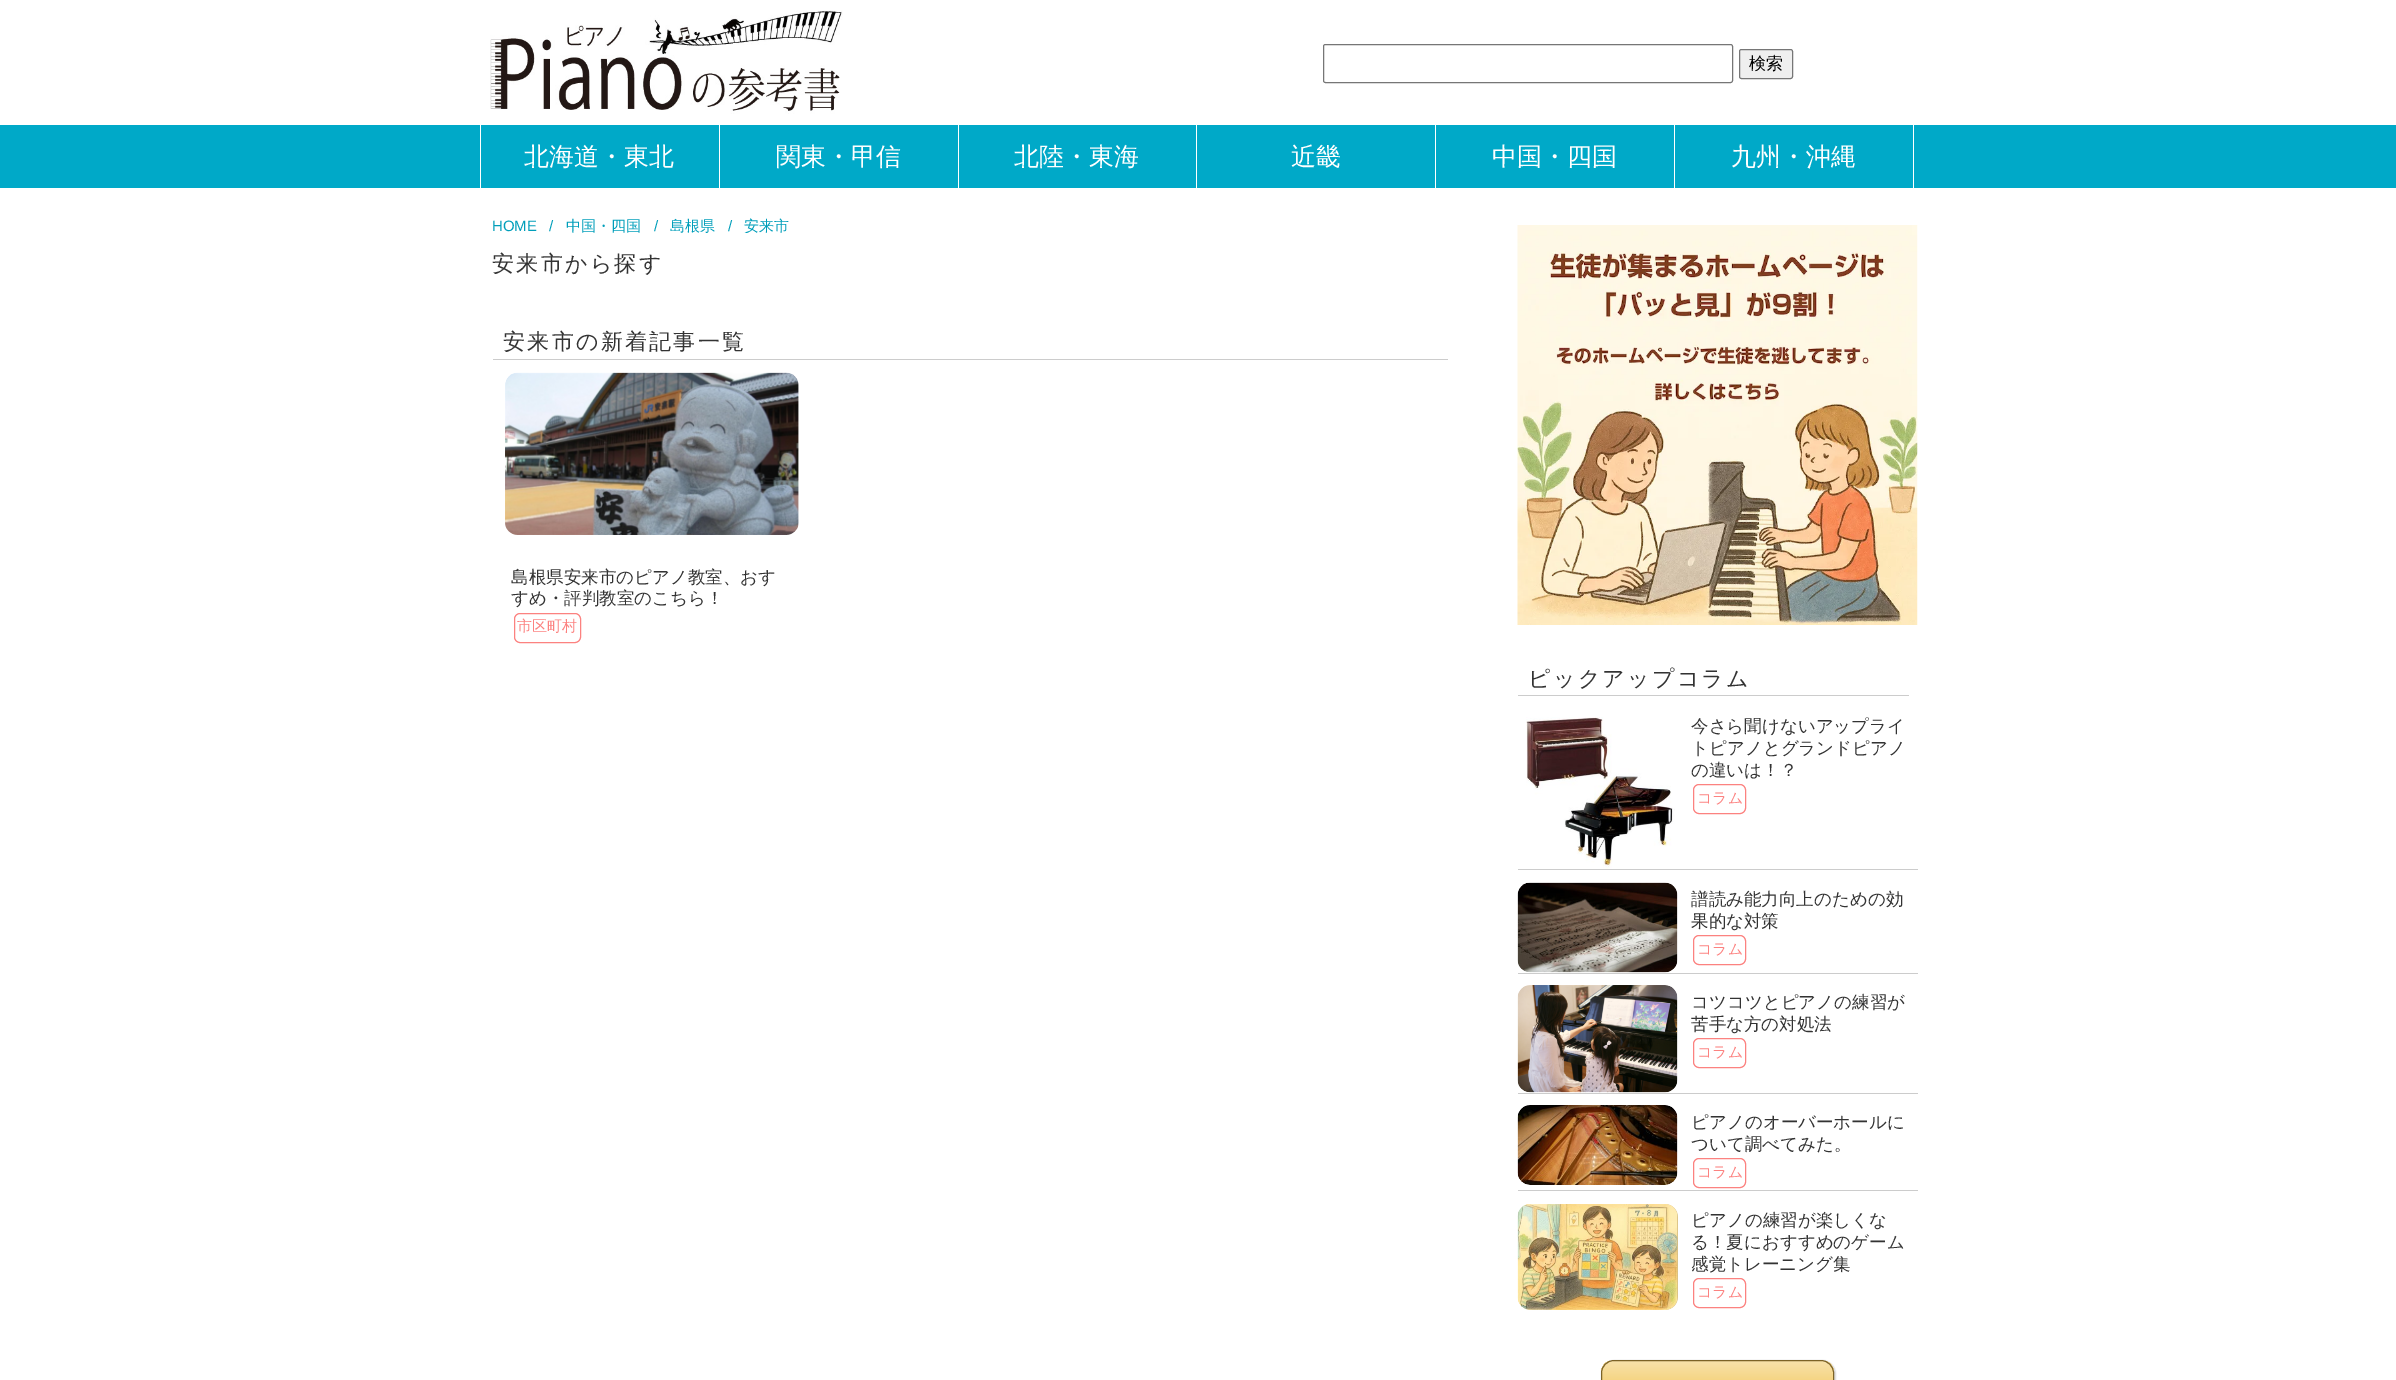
%!PS
<< /PageSize [2396 1380] /PageUsesTransparency true >> setpagedevice
/m/moveto load def
/l/rlineto load def
/z/closepath load def
/f/fill load def
/s/stroke load def
/q/gsave load def
/Q_/grestore load def
/C { dup -16 bitshift 255 div exch dup -8 bitshift 255 and 255 div exch 255 and 255 div setrgbcolor } def
/F { [ exch dup neg 0 0 3 -1 roll 0 0 ] selectfont } def
/T { moveto show } def
/R { rectfill } def
/A { dup .setfillconstantalpha .setstrokeconstantalpha } def
/Q { 5 dict begin { /r /h /w /y /x } { exch def } forall
  x r add y moveto x w add y 2 copy h add r arct x w add y h add x 1 index r arct
  x y h add x y r arct x y 2 copy exch w add exch r arct closepath end } def
/S { 12 dict begin { /a /b /q /h /w /y /x } { exch def } forall gsave /was 0 def
  9 -2 -9 { dup b mul 4 div /e exch def 1 sub .425 mul 2.718 exch exp 1 add a .99 .min exch div /now exch def
    1 1 now sub 1 was sub div sub A /was now def
    w h .min e 2 mul add 0 gt { x e sub y e sub w e 2 mul add h e 2 mul add
      q e add b .6 mul add w h .min 2 div e add .min 0 .max Q fill } if } for grestore end } def
/I { 5 dict begin { /h /w /y /x /name } { exch def } forall
  gsave x y translate w h scale
  w h 8 [w 0 0 h 0 0] name (r) file false 3 colorimage grestore end } def
0 .pushpdf14devicefilter
0 1380 translate 1 -1 scale
4 setmiterlimit
16#FFFFFF C
0 0 2396 1380 R
(1.rgb) 490 10 353 104 I
16#767676 C
1323.5 44.5 409 38 2 Q s
16#EFEFEF C
1739.5 49.5 53 29 2 Q q f Q_
16#767676 C
s
/WenQuanYiZenHei-Medium 17 F
16#000000 C
(検索) 1749 69 T
16#00A9C8 C
0 125 2396 63 R
16#FFFFFF C
480 125 1 63 R
/WenQuanYiZenHei-Medium 25 F
(北海道・東北) 524 165 T
719 125 1 63 R
(関東・甲信) 776 165 T
958 125 1 63 R
(北陸・東海) 1014 165 T
1196 125 1 63 R
(近畿) 1291 165 T
1435 125 1 63 R
(中国・四国) 1492 165 T
1913 125 1 63 R
1674 125 1 63 R
(九州・沖縄) 1731 165 T
/LiberationSans-Regular 15 F
16#009EBA C
(HOME) 492 231 T
(/) 549 231 T
/WenQuanYiZenHei-Medium 15 F
(中国・四国) 566 231 T
/LiberationSans-Regular 15 F
(/) 654 231 T
/WenQuanYiZenHei-Medium 15 F
(島根県) 670 231 T
/LiberationSans-Regular 15 F
(/) 728 231 T
/WenQuanYiZenHei-Medium 15 F
(安来市) 744 231 T
/WenQuanYiZenHei-Medium 22 F
16#333333 C
492 271 m 2.25 0 (安来市から探す) ashow
16#CCCCCC C
493 359 955 1 R
16#333333 C
503 349 m 2.25 0 (安来市の新着記事一覧) ashow
(2.rgb) 505 372 294 163 I
/WenQuanYiZenHei-Medium 17.5 F
(島根県安来市のピアノ教室、おす) 511 583 T
(すめ・評判教室のこちら！) 511 604 T
16#FC8280 C
514.5 613.5 66 29 5.5 Q s
/WenQuanYiZenHei-Medium 15 F
(市区町村) 517 631 T
(3.rgb) 1517 225 401 400 I
16#CCCCCC C
1518 695 391 1 R
/WenQuanYiZenHei-Medium 22 F
16#333333 C
1528 686 m 2.25 0 (ピックアップコラム) ashow
16#CCCCCC C
1518 869 400 1 R
(4.rgb) 1526 717 149 152 I
/WenQuanYiZenHei-Medium 17.5 F
16#333333 C
(今さら聞けないアップライ) 1691 732 T
(トピアノとグランドピアノ) 1691 754 T
(の違いは！？) 1691 776 T
16#FC8280 C
1693.5 784.5 52 29 5.5 Q s
/WenQuanYiZenHei-Medium 15 F
(コラム) 1697 803 T
16#CCCCCC C
1518 973 400 1 R
(5.rgb) 1517 882 161 91 I
/WenQuanYiZenHei-Medium 17.5 F
16#333333 C
(譜読み能力向上のための効) 1691 905 T
(果的な対策) 1691 927 T
16#FC8280 C
1693.5 935.5 52 29 5.5 Q s
/WenQuanYiZenHei-Medium 15 F
(コラム) 1697 954 T
16#CCCCCC C
1518 1093 400 1 R
(6.rgb) 1517 985 161 108 I
/WenQuanYiZenHei-Medium 17.5 F
16#333333 C
(コツコツとピアノの練習が) 1691 1008 T
(苦手な方の対処法) 1691 1030 T
16#FC8280 C
1693.5 1038.5 52 29 5.5 Q s
/WenQuanYiZenHei-Medium 15 F
(コラム) 1697 1057 T
16#CCCCCC C
1518 1190 400 1 R
(7.rgb) 1517 1105 161 80 I
/WenQuanYiZenHei-Medium 17.5 F
16#333333 C
(ピアノのオーバーホールに) 1691 1128 T
(ついて調べてみた。) 1691 1150 T
16#FC8280 C
1693.5 1158.5 52 29 5.5 Q s
/WenQuanYiZenHei-Medium 15 F
(コラム) 1697 1177 T
16#D8C083 C
1518 1204 160 106 13 Q f
(8.rgb) 1517 1204 161 106 I
/WenQuanYiZenHei-Medium 17.5 F
16#333333 C
(ピアノの練習が楽しくな) 1691 1226 T
(る！夏におすすめのゲーム) 1691 1248 T
(感覚トレーニング集) 1691 1270 T
16#FC8280 C
1693.5 1278.5 52 29 5.5 Q s
/WenQuanYiZenHei-Medium 15 F
(コラム) 1697 1297 T
16#DDDDDD C
1601 1360 235 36 14 .5 1 S
q
1601 1360 233 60 13 Q clip newpath
q 1601 1361 m 233 0 l 0 19 l -233 0 l z clip newpath
<< /ShadingType 2 /ColorSpace /DeviceRGB /Coords [1718 1361 1718 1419] /Extend [true true] /Function << /FunctionType 3 /Domain [0 1] /Functions [<< /FunctionType 2 /Domain [0 1] /C0 [.973 .886 .667] /C1 [.957 .82 .478] /N 1 >> << /FunctionType 2 /Domain [0 1] /C0 [.957 .82 .478] /C1 [.941 .757 .294] /N 1 >> << /FunctionType 2 /Domain [0 1] /C0 [.941 .757 .294] /C1 [.925 .694 .11] /N 1 >>] /Bounds [.43 .81] /Encode [0 1 0 1 0 1] >> >> shfill Q_
Q_
16#7C6327 C
1601.5 1360.5 232 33 12.5 Q s
.poppdf14devicefilter showpage
